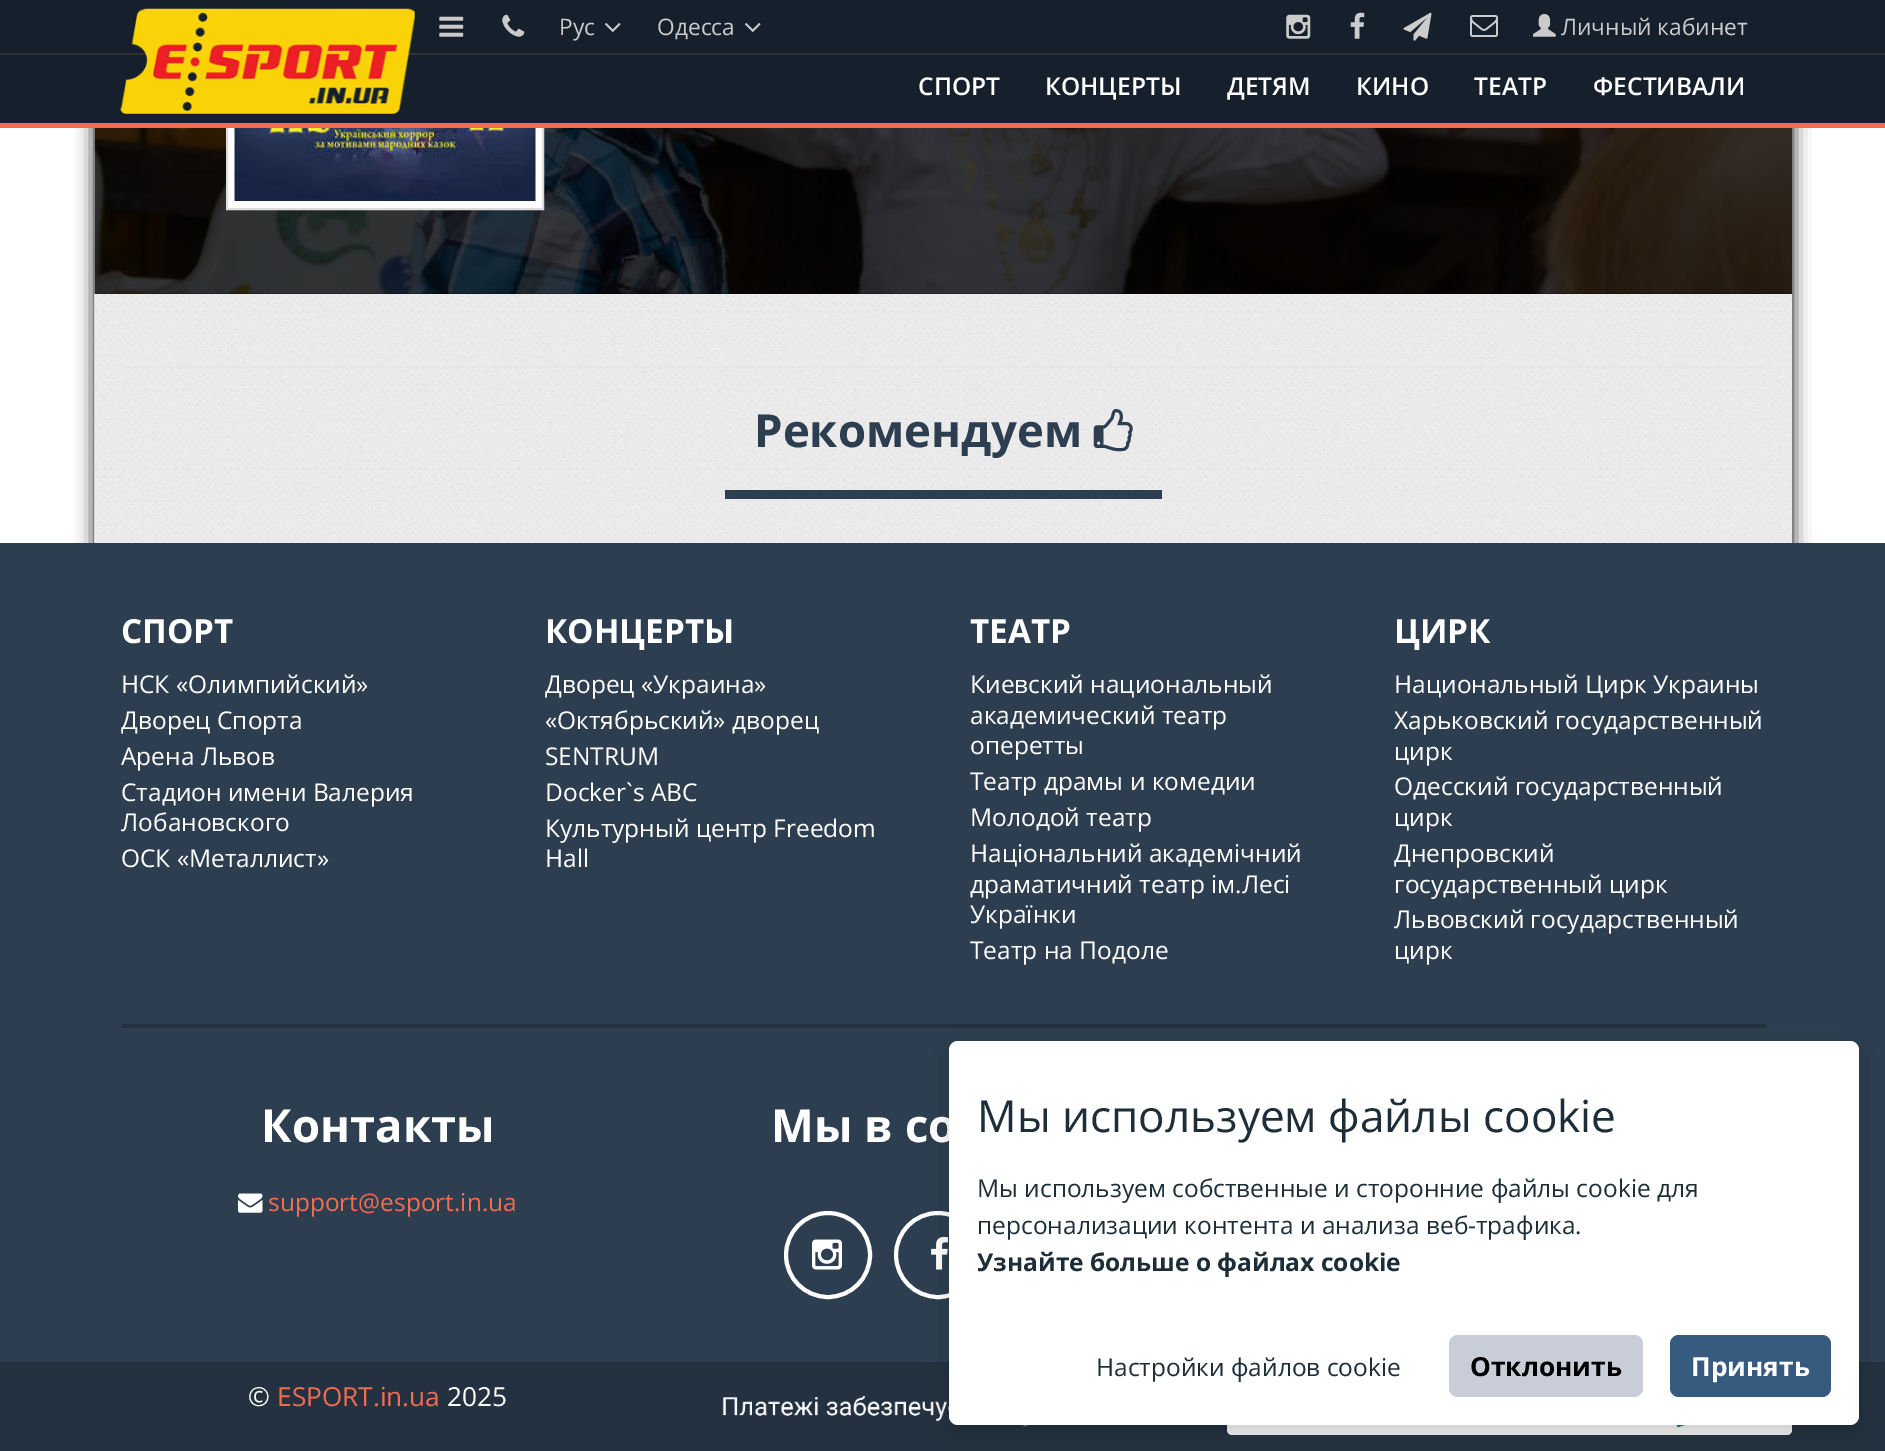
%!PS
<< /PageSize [1885 1451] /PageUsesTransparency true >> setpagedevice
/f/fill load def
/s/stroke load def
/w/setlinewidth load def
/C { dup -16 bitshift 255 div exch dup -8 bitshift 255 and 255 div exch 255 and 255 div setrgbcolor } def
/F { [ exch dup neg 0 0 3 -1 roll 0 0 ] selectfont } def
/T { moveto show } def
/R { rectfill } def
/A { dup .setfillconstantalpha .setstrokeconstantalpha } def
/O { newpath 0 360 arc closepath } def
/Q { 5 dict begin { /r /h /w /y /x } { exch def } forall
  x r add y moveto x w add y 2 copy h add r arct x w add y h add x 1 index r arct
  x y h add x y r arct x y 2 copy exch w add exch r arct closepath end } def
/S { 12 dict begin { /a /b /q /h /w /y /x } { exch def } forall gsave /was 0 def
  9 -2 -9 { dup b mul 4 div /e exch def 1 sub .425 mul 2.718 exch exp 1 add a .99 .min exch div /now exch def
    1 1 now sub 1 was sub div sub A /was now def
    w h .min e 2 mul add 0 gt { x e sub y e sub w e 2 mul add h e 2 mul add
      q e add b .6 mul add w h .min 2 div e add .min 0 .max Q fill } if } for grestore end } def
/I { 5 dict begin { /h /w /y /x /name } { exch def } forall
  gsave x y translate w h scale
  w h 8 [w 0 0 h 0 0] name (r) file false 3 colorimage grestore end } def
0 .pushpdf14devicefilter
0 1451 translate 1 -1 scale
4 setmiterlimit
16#FFFFFF C
0 0 1885 1451 R
16#000000 C
95 -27 1697 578 0 9 1 S
(10.rgb) 94 128 1698 415 I
(11.rgb) 94 128 1698 166 I
16#FFFFFF C
228 128 314 80 R
16#DDDDDD C
2 w
227 -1 316 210 rectstroke
16#16202D C
0 0 1885 53 R
16#303030 C
0 53 1885 2 R
16#16202D C
0 55 1885 68 R
(1.rgb) 120 8 295 106 I
(2.rgb) 439 16 25 21 I
(3.rgb) 502 14 23 23 I
/OpenSans-Regular 22.75 F
16#CBCBCB C
(Рус) 559 35 T
(4.rgb) 605 23 16 9 I
(Одесса) 657 35 T
(4.rgb) 745 23 16 9 I
(5.rgb) 1286 14 25 25 I
(6.rgb) 1350 12 15 27 I
(7.rgb) 1403 12 29 29 I
(8.rgb) 1470 15 28 22 I
(9.rgb) 1533 14 23 23 I
(Личный кабинет) 1561 35 T
16#F26C4F C
0 123 1885 5 R
/OpenSans-SemiBold 24.5 F
16#FFFFFF C
(СПОРТ) 918 95 T
(КОНЦЕРТЫ) 1045 95 T
(ДЕТЯМ) 1227 95 T
(КИНО) 1356 95 T
(ТЕАТР) 1474 95 T
(ФЕСТИВАЛИ) 1593 95 T
(12.rgb) 234 128 302 73 I
16#E6E6E6 C
121 366 1645 2 R
/OpenSans-Bold 45.5 F
16#2C3E50 C
(Рекомендуем) 754 447 T
(13.rgb) 1093 409 40 43 I
725 490 437 9 R
0 543 1885 819 R
/OpenSans-Bold 33.25 F
16#FFFFFF C
(СПОРТ) 121 643 T
/OpenSans-Regular 24.5 F
(НСК «Олимпийский») 121 693 T
(Дворец Спорта) 121 729 T
(Арена Львов) 121 765 T
(Стадион имени Валерия) 121 801 T
(Лобановского) 121 831 T
(ОСК «Металлист») 121 867 T
/OpenSans-Bold 33.25 F
(КОНЦЕРТЫ) 545 643 T
/OpenSans-Regular 24.5 F
(Дворец «Украина») 545 693 T
(«Октябрьский» дворец) 545 729 T
(SENTRUM) 545 765 T
(Docker`s ABC) 545 801 T
(Культурный центр Freedom) 545 837 T
(Hall) 545 867 T
/OpenSans-Bold 33.25 F
(ТЕАТР) 970 643 T
/OpenSans-Regular 24.5 F
(Киевский национальный) 970 693 T
(академический театр) 970 724 T
(оперетты) 970 754 T
(Театр драмы и комедии) 970 790 T
(Молодой театр) 970 826 T
(Національний академічний) 970 862 T
(драматичний театр ім.Лесі) 970 893 T
(Українки) 970 923 T
(Театр на Подоле) 970 959 T
/OpenSans-Bold 33.25 F
(ЦИРК) 1394 643 T
/OpenSans-Regular 24.5 F
(Национальный Цирк Украины) 1394 693 T
(Харьковский государственный) 1394 729 T
(цирк) 1394 760 T
(Одесский государственный) 1394 795 T
(цирк) 1394 826 T
(Днепровский) 1394 862 T
(государственный цирк) 1394 893 T
(Львовский государственный) 1394 928 T
(цирк) 1394 959 T
16#233140 C
121 1024 1645 4 R
/OpenSans-Bold 45.5 F
16#FFFFFF C
(Контакты) 261 1142 T
(14.rgb) 238 1193 25 20 I
/OpenSans-Regular 24.5 F
16#F26C4F C
(support@esport.in.ua) 268 1211 T
/OpenSans-Bold 45.5 F
16#FFFFFF C
(Мы в со) 771 1142 T
4 w
828 1255 42 O s
(15.rgb) 812 1239 30 31 I
938 1255 42 O s
(16.rgb) 931 1237 17 33 I
16#233140 C
0 1362 1885 89 R
/OpenSans-Regular 26.25 F
16#FFFFFF C
(©) 248 1406 T
16#F26C4F C
(ESPORT.in.ua) 277 1406 T
16#FFFFFF C
(2025) 447 1406 T
(17.rgb) 722 1395 306 32 I
16#EFEFEF C
1227 1379 565 56 5 Q f
(18.rgb) 1676 1425 10 3 I
16#000000 C
949 1048 910 384 9 14 .16 S
16#FFFFFF C
949 1041 910 384 9 Q f
/OpenSans-Regular 44.1 F
16#1D2E38 C
(Мы используем файлы cookie) 977 1132 T
/OpenSans-Regular 24.5 F
(Мы используем собственные и сторонние файлы cookie для) 977 1197 T
(персонализации контента и анализа веб-трафика.) 977 1234 T
/OpenSans-Bold 24.5 F
(Узнайте больше о файлах cookie) 977 1271 T
/OpenSans-Regular 24.5 F
(Настройки файлов cookie) 1096 1376 T
16#C8CDD8 C
1449 1335 194 62 9 Q f
/OpenSans-Bold 26.25 F
16#000000 C
(Отклонить) 1470 1376 T
16#375A7F C
1670 1335 161 62 9 Q f
16#FFFFFF C
(Принять) 1691 1376 T
.poppdf14devicefilter showpage
